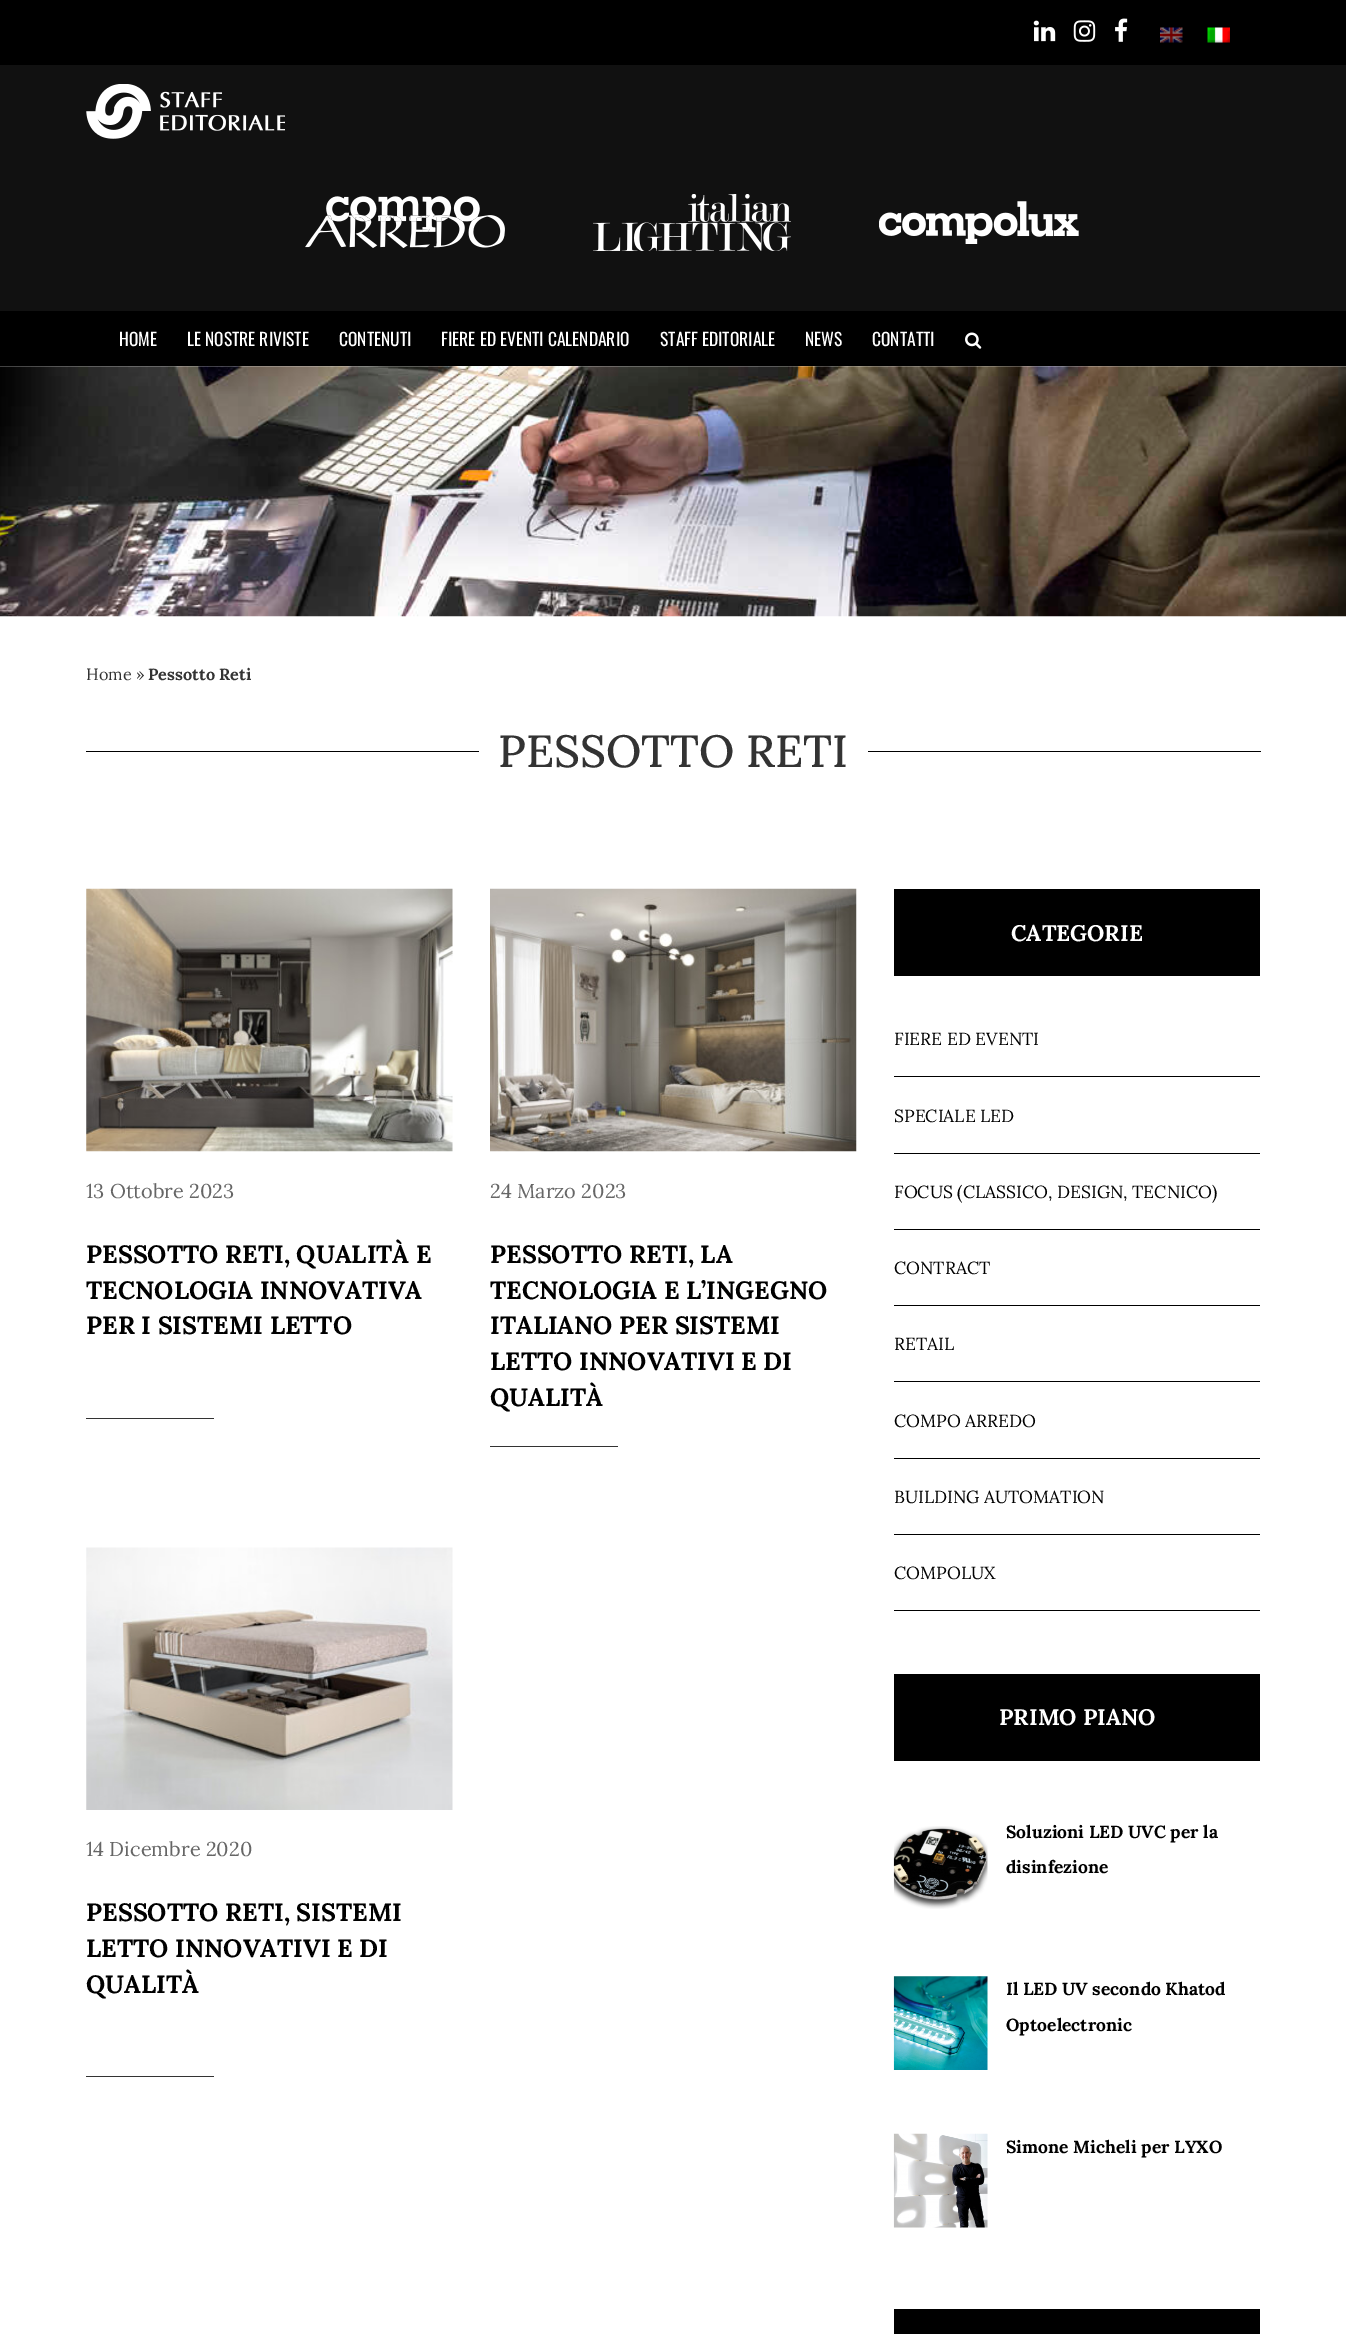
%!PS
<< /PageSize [1346 2334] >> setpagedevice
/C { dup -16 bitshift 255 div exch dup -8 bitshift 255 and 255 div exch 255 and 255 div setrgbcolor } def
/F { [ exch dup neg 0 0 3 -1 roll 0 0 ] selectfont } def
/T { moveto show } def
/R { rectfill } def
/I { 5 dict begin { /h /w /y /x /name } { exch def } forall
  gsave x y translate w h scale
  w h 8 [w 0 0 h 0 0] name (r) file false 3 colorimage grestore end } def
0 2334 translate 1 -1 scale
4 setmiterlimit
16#FFFFFF C
0 0 1346 2334 R
16#000000 C
0 0 1346 65 R
(1.rgb) 1033 20 23 22 I
(2.rgb) 1073 20 23 22 I
(3.rgb) 1115 18 13 24 I
(4.rgb) 1160 27 23 16 I
(5.rgb) 1207 27 23 16 I
16#111111 C
0 65 1346 246 R
(6.rgb) 86 84 199 55 I
(7.rgb) 305 196 200 52 I
(8.rgb) 593 194 198 57 I
(9.rgb) 879 201 200 43 I
16#000000 C
0 311 1346 55 R
/Oswald-Regular 17.5 F
16#FFFFFF C
(HOME) 119 346 T
(LE NOSTRE RIVISTE) 187 346 T
(CONTENUTI) 339 346 T
(FIERE ED EVENTI CALENDARIO) 441 346 T
(STAFF EDITORIALE) 660 346 T
(NEWS) 805 346 T
(CONTATTI) 872 346 T
(10.rgb) 965 332 17 17 I
(11.rgb) 0 366 1346 251 I
/Lora-Regular 16.25 F
16#333333 C
(Home ») 86 680 T
/Lora-Bold 16.25 F
(Pessotto Reti) 148 680 T
16#000000 C
86 751 1175 1 R
16#FFFFFF C
479 751 389 1 R
/Lora-Medium 45 F
16#333333 C
(PESSOTTO RETI) 498 767 T
(12.rgb) 86 888 367 264 I
/Lora-Regular 20 F
16#666666 C
(13 Ottobre 2023) 86 1198 T
/Lora-Bold 25 F
16#000000 C
(PESSOTTO RETI, QUALITÀ E) 86 1263 T
(TECNOLOGIA INNOVATIVA) 86 1299 T
(PER I SISTEMI LETTO) 86 1334 T
16#333333 C
86 1418 128 1 R
(13.rgb) 490 888 367 264 I
/Lora-Regular 20 F
16#666666 C
(24 Marzo 2023) 490 1198 T
/Lora-Bold 25 F
16#000000 C
(PESSOTTO RETI, LA) 490 1263 T
(TECNOLOGIA E L’INGEGNO) 490 1299 T
(ITALIANO PER SISTEMI) 490 1334 T
(LETTO INNOVATIVI E DI) 490 1370 T
(QUALITÀ) 490 1406 T
16#333333 C
490 1446 128 1 R
(14.rgb) 86 1547 367 263 I
/Lora-Regular 20 F
16#666666 C
(14 Dicembre 2020) 86 1856 T
/Lora-Bold 25 F
16#000000 C
(PESSOTTO RETI, SISTEMI) 86 1921 T
(LETTO INNOVATIVI E DI) 86 1957 T
(QUALITÀ) 86 1993 T
16#333333 C
86 2076 128 1 R
16#000000 C
894 889 366 87 R
/Lora-Bold 22.5 F
16#FFFFFF C
(CATEGORIE) 1011 941 T
16#000000 C
894 1076 366 1 R
/Lora-Regular 17.5 F
(FIERE ED EVENTI) 894 1045 T
894 1153 366 1 R
(SPECIALE LED) 894 1122 T
894 1229 366 1 R
(FOCUS \(CLASSICO, DESIGN, TECNICO\)) 894 1198 T
894 1305 366 1 R
(CONTRACT) 894 1274 T
894 1381 366 1 R
(RETAIL) 894 1350 T
894 1458 366 1 R
(COMPO ARREDO) 894 1427 T
894 1534 366 1 R
(BUILDING AUTOMATION) 894 1503 T
894 1610 366 1 R
(COMPOLUX) 894 1579 T
894 1674 366 87 R
/Lora-Bold 22.5 F
16#FFFFFF C
(PRIMO PIANO) 999 1725 T
(15.rgb) 893 1826 95 83 I
/Lora-Bold 17.5 F
16#000000 C
(Soluzioni LED UVC per la) 1006 1838 T
(disinfezione) 1006 1873 T
(16.rgb) 893 1976 95 94 I
(Il LED UV secondo Khatod) 1006 1995 T
(Optoelectronic) 1006 2031 T
(17.rgb) 893 2133 95 95 I
(Simone Micheli per LYXO) 1006 2153 T
894 2309 366 25 R
showpage
